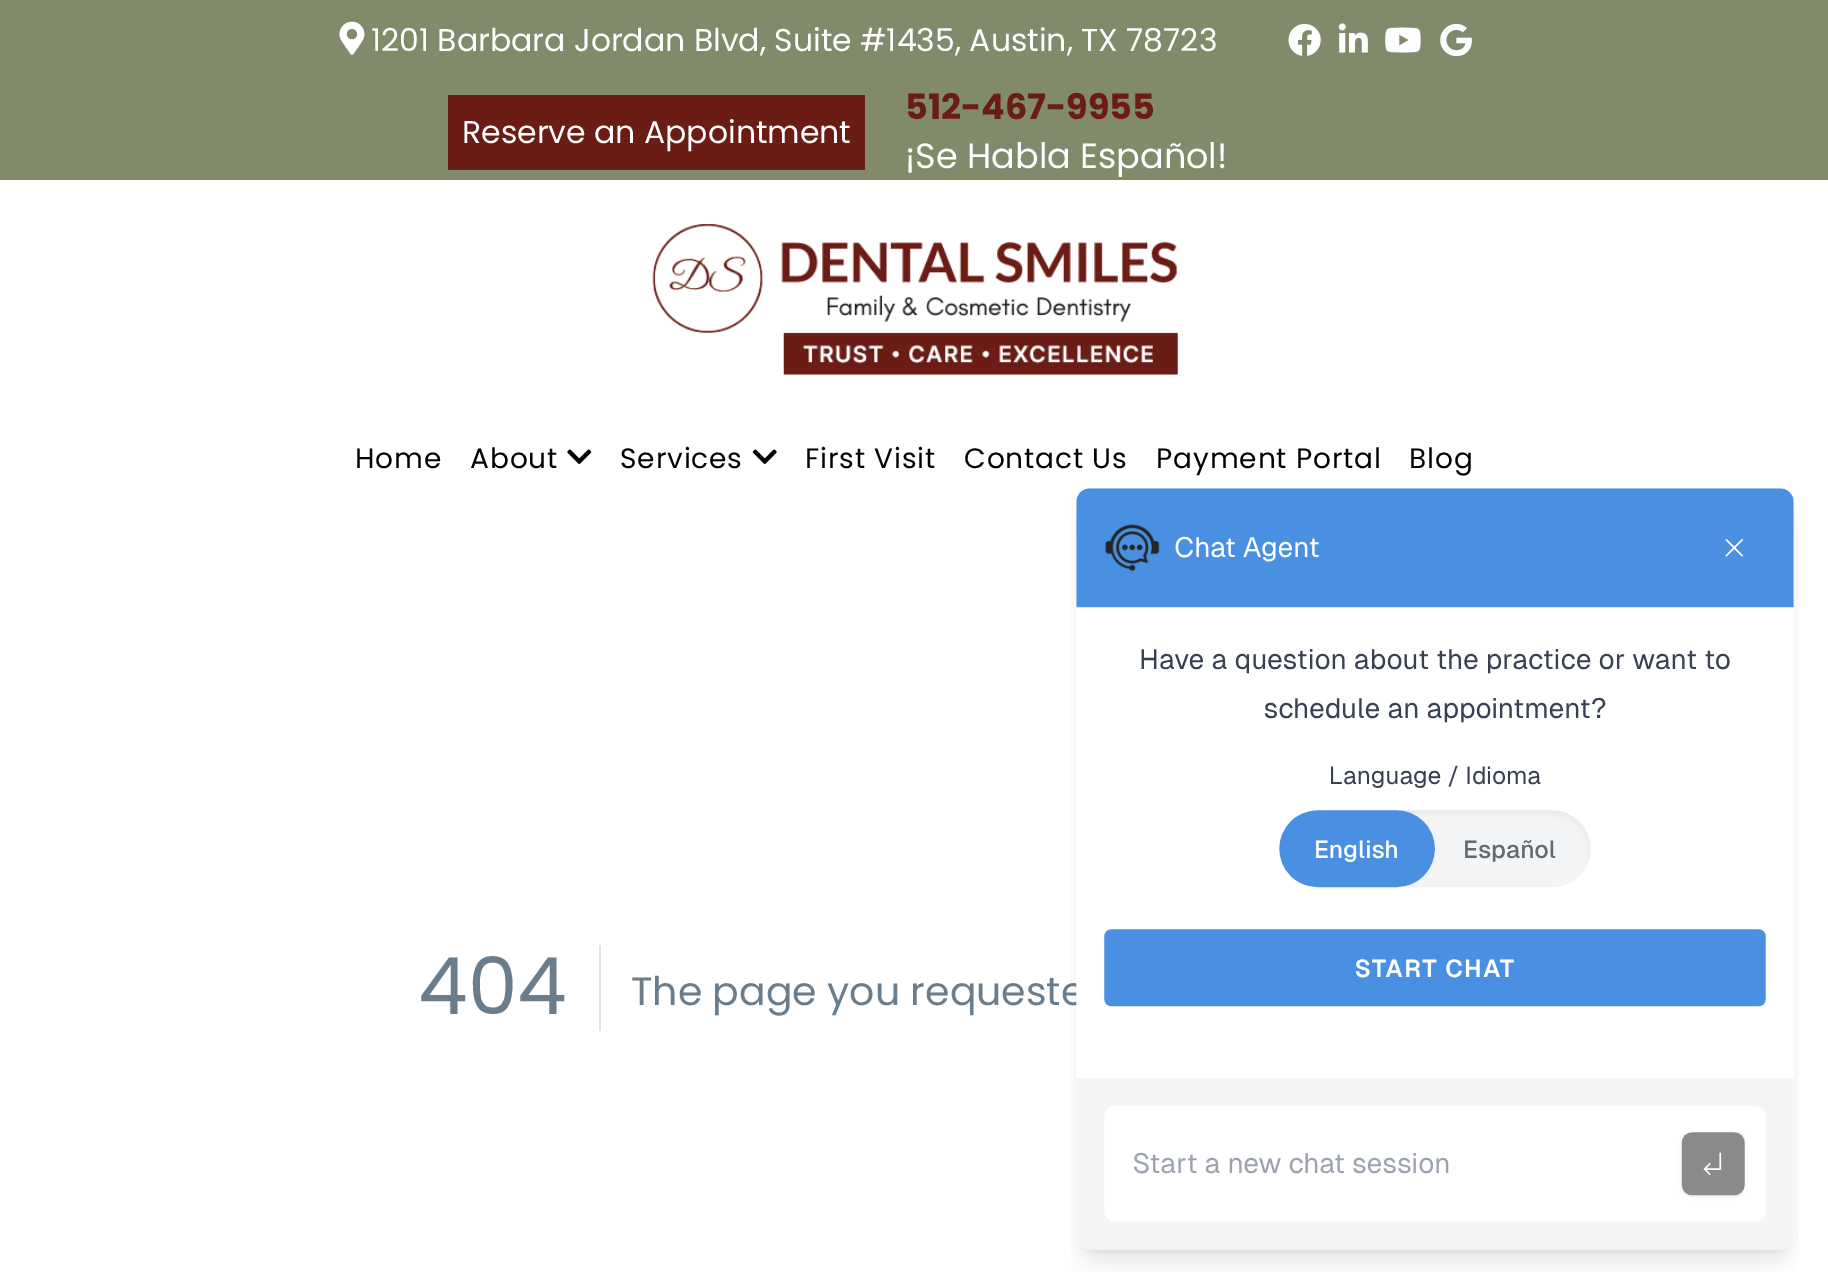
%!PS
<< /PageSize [1828 1283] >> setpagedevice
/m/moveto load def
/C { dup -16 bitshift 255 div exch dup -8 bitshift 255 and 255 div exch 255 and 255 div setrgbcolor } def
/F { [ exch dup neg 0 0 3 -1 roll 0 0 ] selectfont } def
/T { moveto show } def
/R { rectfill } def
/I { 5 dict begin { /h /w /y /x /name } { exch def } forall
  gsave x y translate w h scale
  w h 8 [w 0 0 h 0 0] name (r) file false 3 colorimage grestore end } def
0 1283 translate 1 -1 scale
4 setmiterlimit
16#FFFFFF C
0 0 1828 1283 R
16#828A6C C
0 0 1828 180 R
(1.rgb) 339 21 26 34 I
/Poppins-Regular 31.5 F
16#FFFFFF C
(1201 Barbara Jordan Blvd, Suite #1435, Austin, TX 78723) 371 51 T
(2.rgb) 1288 23 33 33 I
(3.rgb) 1338 23 30 30 I
(4.rgb) 1385 27 36 26 I
(5.rgb) 1440 23 32 34 I
16#6B1D15 C
448 95 417 75 R
16#FFFFFF C
(Reserve an Appointment) 462 143 T
/Poppins-Bold 35 F
16#6B1D15 C
(512-467-9955) 905 119 T
/Poppins-Regular 35 F
16#FFFFFF C
(¡Se Habla Español!) 905 168 T
(6.rgb) 652 224 526 151 I
/Poppins-Regular 28 F
16#010101 C
355 468 m .9 0 (Home) ashow
470 468 m .9 0 (About) ashow
(7.rgb) 567 449 25 15 I
620 468 m .9 0 (Services) ashow
(8.rgb) 752 449 25 15 I
805 468 m .9 0 (First Visit) ashow
964 468 m .9 0 (Contact Us) ashow
1156 468 m .9 0 (Payment Portal) ashow
1409 468 m .9 0 (Blog) ashow
16#DEE2E6 C
599 945 2 86 R
/Poppins-Regular 79 F
16#697D8C C
(404) 418 1014 T
/Poppins-Regular 39.4 F
(The page you requeste) 631 1005 T
(9.rgb) 1071 488 728 784 I
showpage
